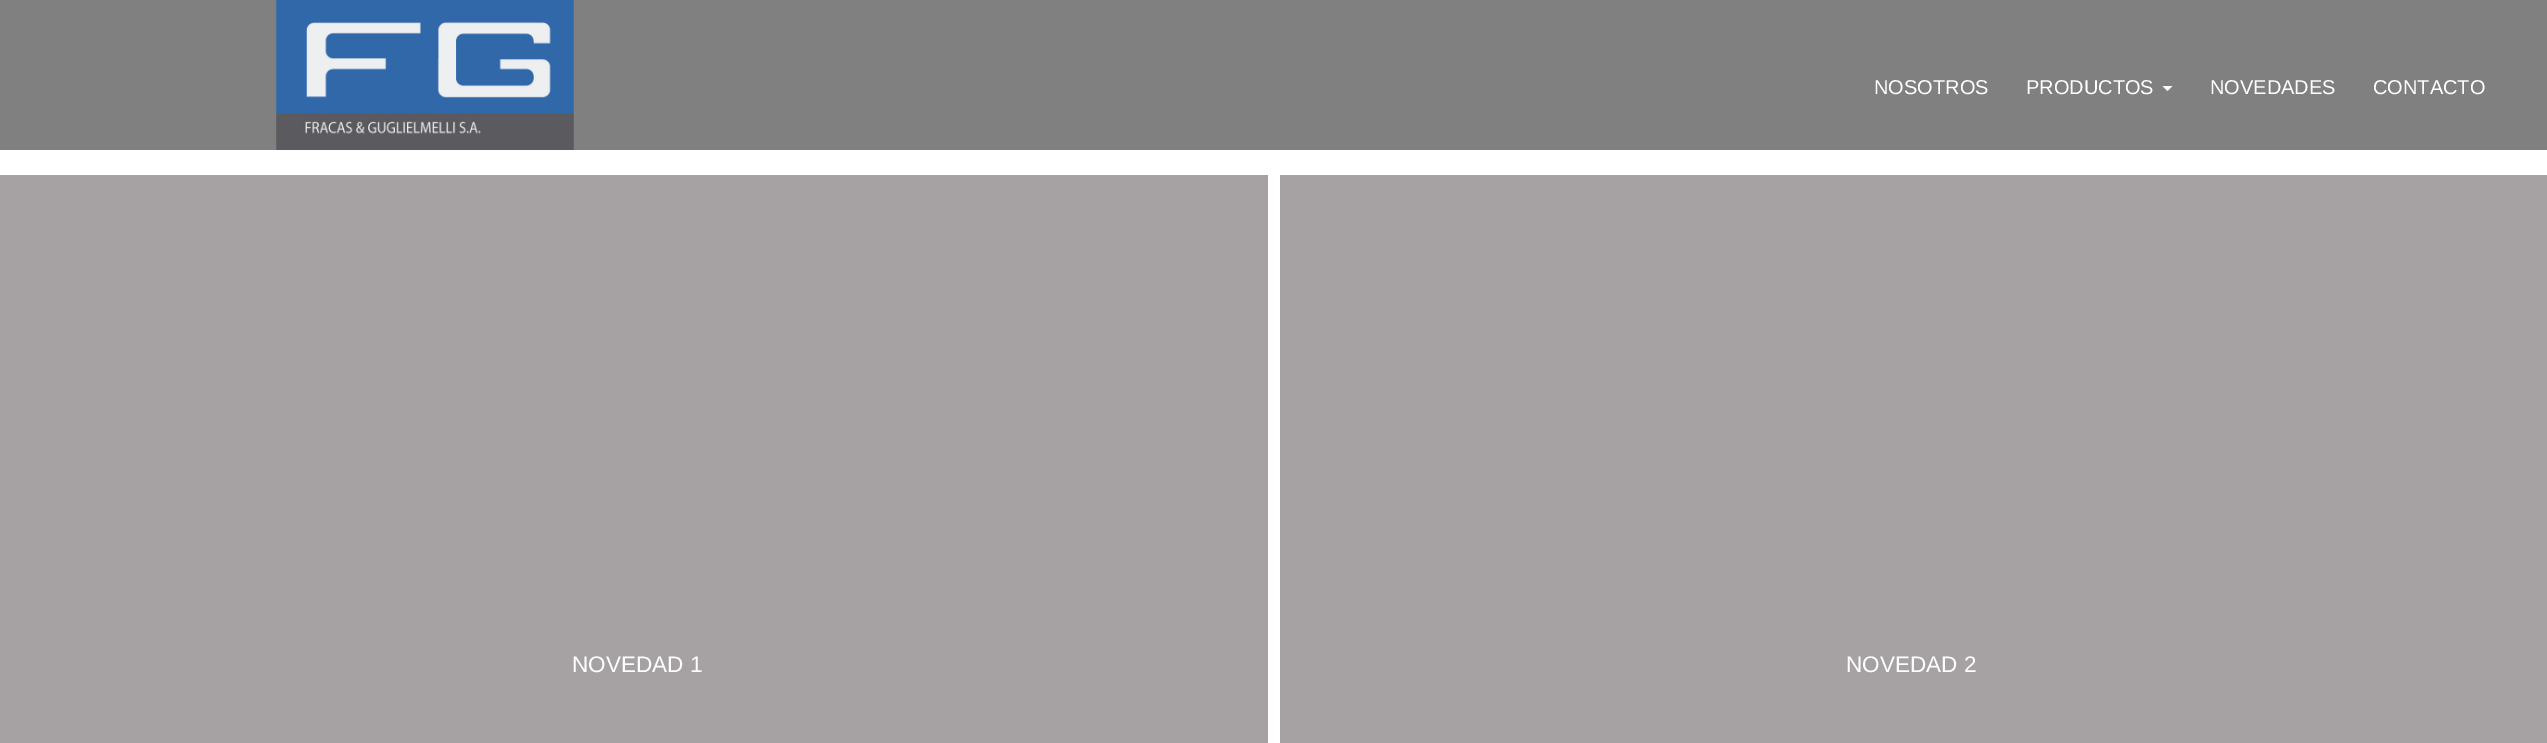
%!PS
<< /PageSize [2547 743] >> setpagedevice
/m/moveto load def
/l/rlineto load def
/z/closepath load def
/f/fill load def
/C { dup -16 bitshift 255 div exch dup -8 bitshift 255 and 255 div exch 255 and 255 div setrgbcolor } def
/F { [ exch dup neg 0 0 3 -1 roll 0 0 ] selectfont } def
/T { moveto show } def
/R { rectfill } def
/I { 5 dict begin { /h /w /y /x /name } { exch def } forall
  gsave x y translate w h scale
  w h 8 [w 0 0 h 0 0] name (r) file false 3 colorimage grestore end } def
0 743 translate 1 -1 scale
4 setmiterlimit
16#FFFFFF C
0 0 2547 743 R
16#808080 C
0 0 2547 150 R
(1.rgb) 276 0 298 150 I
/LiberationSans-Regular 20 F
16#FFFFFF C
(NOSOTROS) 1874 94 T
(PRODUCTOS) 2026 94 T
2162.5 86 m 10 0 l -5 5 l z f
(NOVEDADES) 2210 94 T
(CONTACTO) 2373 94 T
16#A6A2A3 C
0 175 1268 568 R
/LiberationSans-Regular 22.5 F
16#FFFFFF C
(NOVEDAD 1) 572 672 T
16#A6A2A3 C
1280 175 1267 568 R
16#FFFFFF C
(NOVEDAD 2) 1846 672 T
showpage
